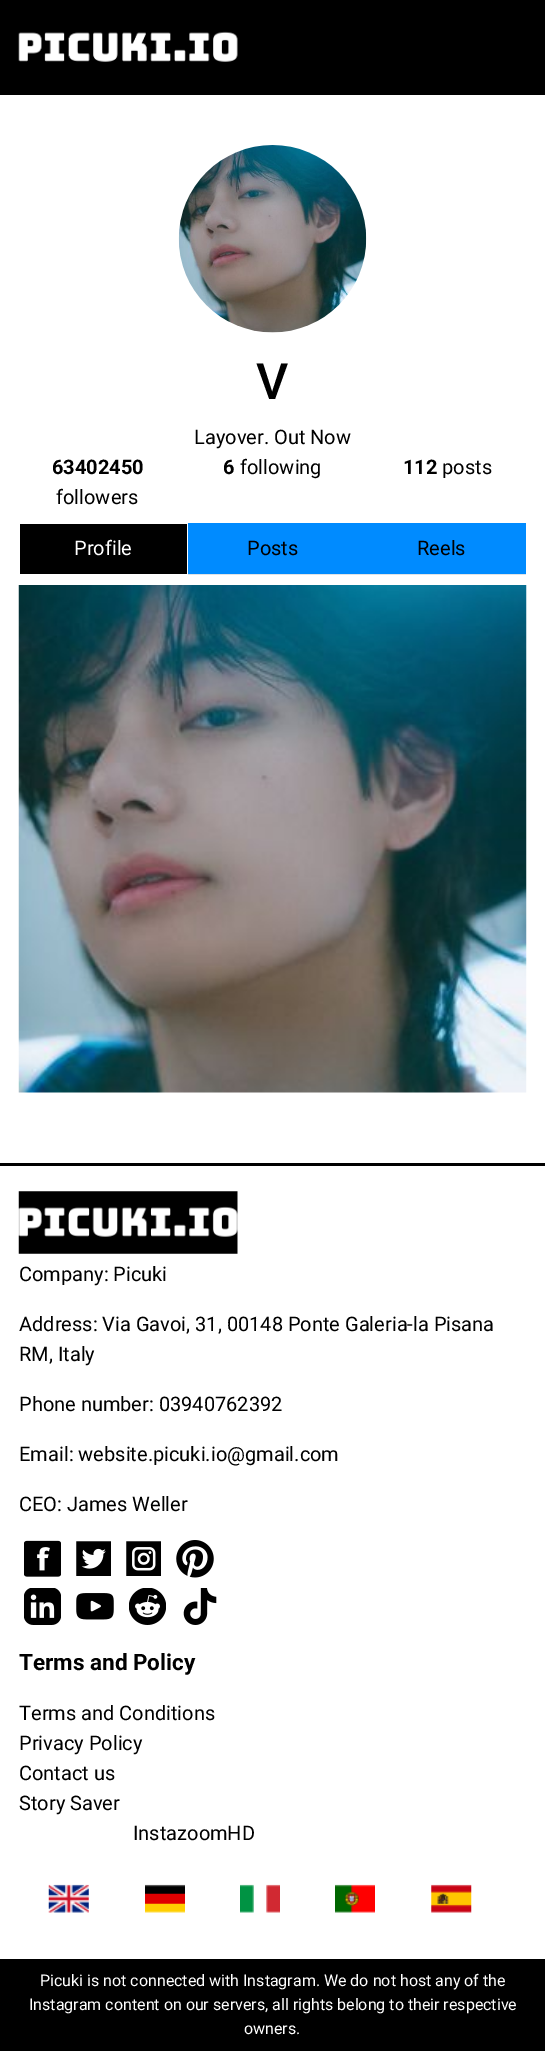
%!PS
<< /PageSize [545 2067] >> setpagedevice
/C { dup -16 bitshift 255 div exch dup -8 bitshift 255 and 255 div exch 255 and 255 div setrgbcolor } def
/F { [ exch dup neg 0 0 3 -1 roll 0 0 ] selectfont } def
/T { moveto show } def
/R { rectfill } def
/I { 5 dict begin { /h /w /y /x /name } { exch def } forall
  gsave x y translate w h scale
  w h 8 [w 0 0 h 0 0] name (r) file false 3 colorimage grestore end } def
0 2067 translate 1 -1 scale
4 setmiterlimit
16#FFFFFF C
0 0 545 2067 R
16#000000 C
0 0 545 95 R
(1.rgb) 18 31 220 31 I
(2.rgb) 178 145 189 188 I
/Roboto-Medium 50 F
(V) 256 399 T
/Roboto-Regular 20 F
(Layover. Out Now) 194 444 T
/Roboto-Bold 20 F
(63402450) 52 474 T
/Roboto-Regular 20 F
(followers) 56 504 T
/Roboto-Bold 20 F
(6) 223 474 T
/Roboto-Regular 20 F
(following) 240 474 T
/Roboto-Bold 20 F
(112) 403 474 T
/Roboto-Regular 20 F
(posts) 442 474 T
16#008BFF C
188 523 338 51 R
16#DEE2E6 C
188 574 338 1 R
16#000000 C
20 524 167 50 R
16#FFFFFF C
(Profile) 74 555 T
16#000000 C
(Posts) 247 555 T
(Reels) 417 555 T
(3.rgb) 18 585 509 508 I
0 1163 545 3 R
(4.rgb) 18 1191 220 63 I
(Company: Picuki) 19 1281 T
(Address: Via Gavoi, 31, 00148 Ponte Galeria-la Pisana) 19 1331 T
(RM, Italy) 19 1361 T
(Phone number: 03940762392) 19 1411 T
(Email: website.picuki.io@gmail.com) 19 1461 T
(CEO: James Weller) 19 1511 T
(5.rgb) 24 1540 37 37 I
(6.rgb) 76 1541 35 35 I
(7.rgb) 126 1541 35 35 I
(8.rgb) 176 1540 38 38 I
(9.rgb) 24 1588 37 37 I
(10.rgb) 76 1593 38 27 I
(11.rgb) 129 1588 37 37 I
(12.rgb) 183 1588 34 37 I
/Roboto-Bold 22.5 F
(Terms and Policy) 19 1670 T
/Roboto-Regular 20 F
(Terms and Conditions) 19 1720 T
(Privacy Policy) 19 1750 T
(Contact us) 19 1780 T
(Story Saver) 19 1810 T
(InstazoomHD) 133 1840 T
(13.rgb) 48 1884 41 29 I
(14.rgb) 145 1884 40 29 I
(15.rgb) 240 1884 40 29 I
(16.rgb) 335 1884 40 29 I
(17.rgb) 431 1884 41 29 I
0 1959 545 92 R
/Roboto-Regular 16 F
16#FFFFFF C
(Picuki is not connected with Instagram. We do not host any of the) 40 1986 T
(Instagram content on our servers, all rights belong to their respective) 29 2010 T
(owners.) 244 2034 T
showpage
